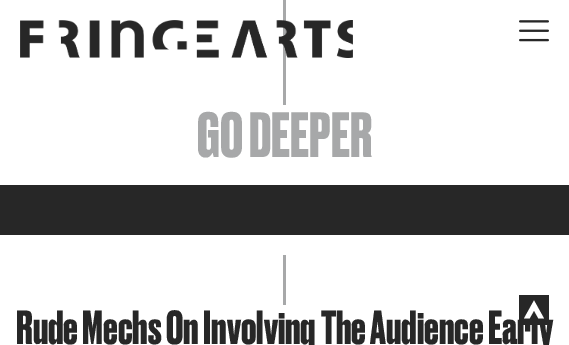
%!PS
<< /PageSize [569 345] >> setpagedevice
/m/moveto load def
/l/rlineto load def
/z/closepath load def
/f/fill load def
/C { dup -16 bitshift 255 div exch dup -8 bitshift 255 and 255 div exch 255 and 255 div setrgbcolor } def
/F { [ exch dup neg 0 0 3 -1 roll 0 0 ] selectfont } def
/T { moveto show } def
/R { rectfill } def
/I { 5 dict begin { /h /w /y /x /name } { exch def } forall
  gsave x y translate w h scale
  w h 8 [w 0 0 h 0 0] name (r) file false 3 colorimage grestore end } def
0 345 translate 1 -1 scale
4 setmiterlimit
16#FFFFFF C
0 0 569 345 R
16#A7A8A9 C
283 0 3 105 R
(1.rgb) 20 20 333 38 I
(2.rgb) 519 20 30 22 I
/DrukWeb-Bold 60 F
(GO DEEPER) 197 157 T
16#272727 C
0 185 569 50 R
16#A7A8A9 C
283 255 3 50 R
/DrukWeb-Bold 45 F
16#272727 C
(Rude Mechs On Involving The Audience Early) 16 344 T
519 295 30 30 R
16#FFFFFF C
534 300.5 m 10 18 l -5.5 0 l -4.5 -8 l -4.5 8 l -5.5 0 l z f
showpage
